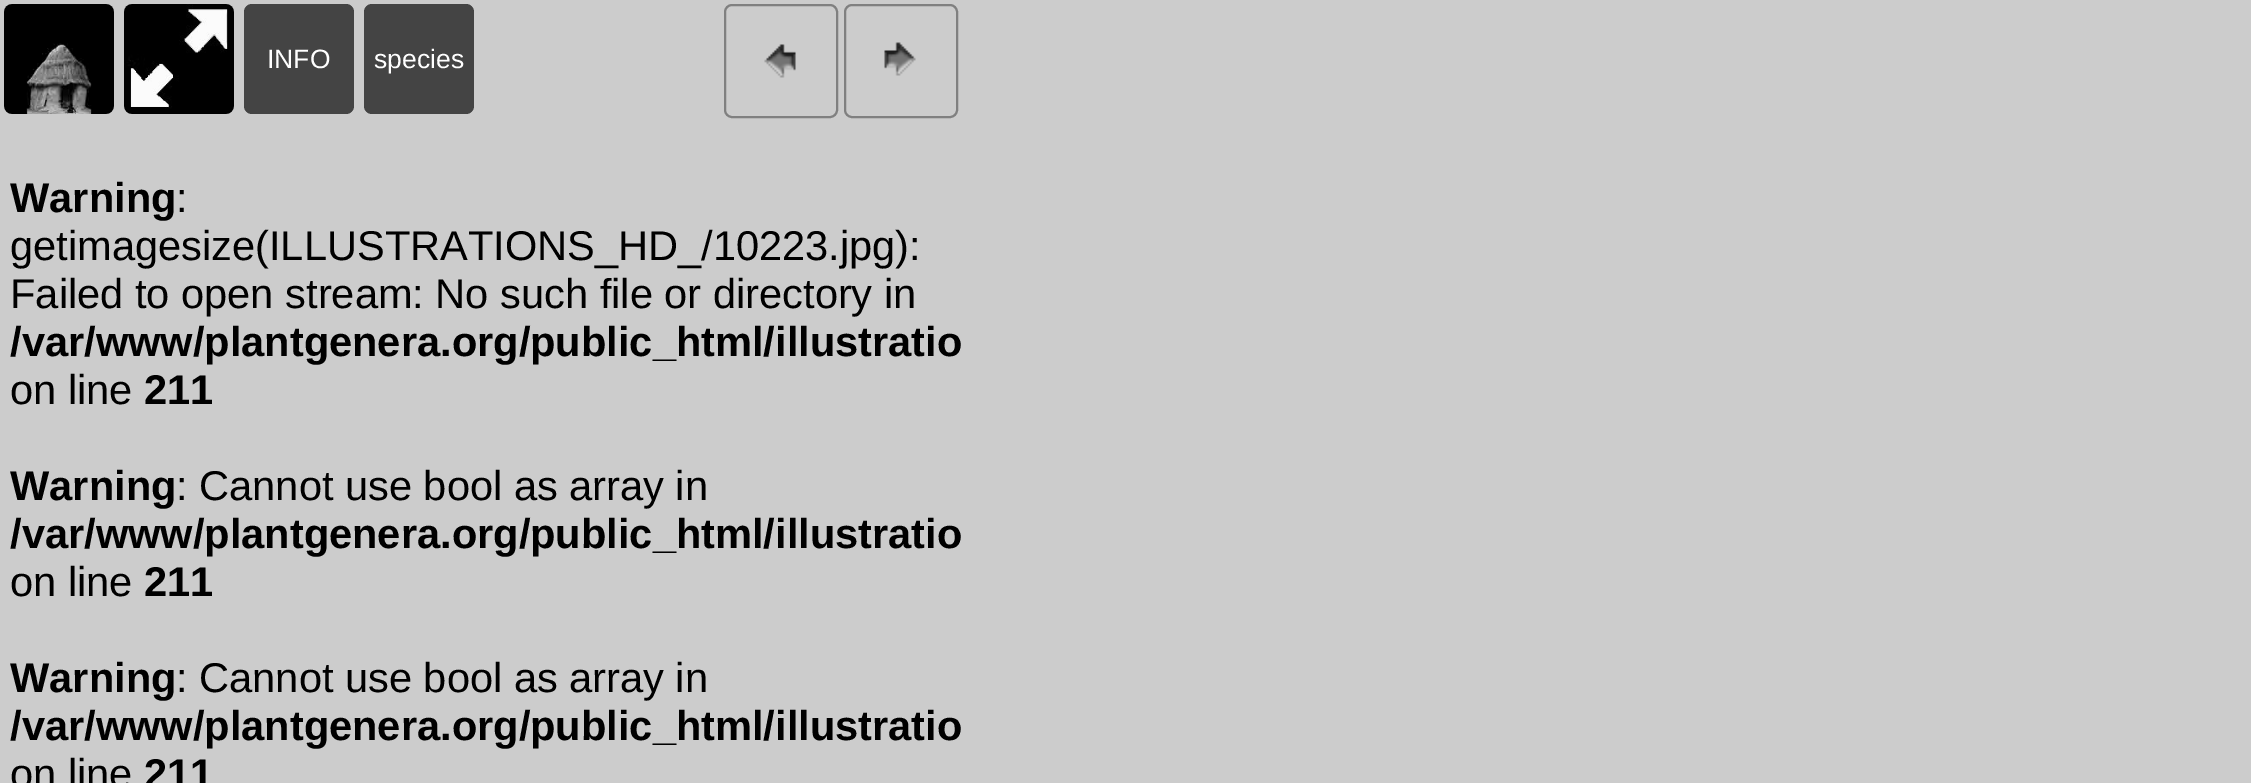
%!PS
<< /PageSize [2251 783] >> setpagedevice
/f/fill load def
/s/stroke load def
/w/setlinewidth load def
/C { dup -16 bitshift 255 div exch dup -8 bitshift 255 and 255 div exch 255 and 255 div setrgbcolor } def
/F { [ exch dup neg 0 0 3 -1 roll 0 0 ] selectfont } def
/T { moveto show } def
/R { rectfill } def
/Q { 5 dict begin { /r /h /w /y /x } { exch def } forall
  x r add y moveto x w add y 2 copy h add r arct x w add y h add x 1 index r arct
  x y h add x y r arct x y 2 copy exch w add exch r arct closepath end } def
/I { 5 dict begin { /h /w /y /x /name } { exch def } forall
  gsave x y translate w h scale
  w h 8 [w 0 0 h 0 0] name (r) file false 3 colorimage grestore end } def
0 783 translate 1 -1 scale
4 setmiterlimit
16#CCCCCC C
0 0 2251 783 R
(1.rgb) 4 4 110 110 I
(2.rgb) 124 4 110 110 I
16#444444 C
244 4 110 110 8 Q f
/LiberationSans-Regular 26.5 F
16#FFFFFF C
(INFO) 267 68 T
16#444444 C
364 4 110 110 8 Q f
16#FFFFFF C
(species) 374 68 T
16#808080 C
2 w
725 5 112 112 7 Q s
(3.rgb) 764 44 32 34 I
845 5 112 112 7 Q s
(4.rgb) 884 42 32 34 I
/LiberationSans-Bold 41.6 F
16#000000 C
(Warning) 10 212 T
/LiberationSans-Regular 41.6 F
(:) 176 212 T
(getimagesize\(ILLUSTRATIONS_HD_/10223.jpg\):) 10 260 T
(Failed to open stream: No such file or directory in) 10 308 T
/LiberationSans-Bold 41.6 F
(/var/www/plantgenera.org/public_html/illustratio) 10 356 T
/LiberationSans-Regular 41.6 F
(on line) 10 404 T
/LiberationSans-Bold 41.6 F
(211) 144 404 T
(Warning) 10 500 T
/LiberationSans-Regular 41.6 F
(: Cannot use bool as array in) 176 500 T
/LiberationSans-Bold 41.6 F
(/var/www/plantgenera.org/public_html/illustratio) 10 548 T
/LiberationSans-Regular 41.6 F
(on line) 10 596 T
/LiberationSans-Bold 41.6 F
(211) 144 596 T
(Warning) 10 692 T
/LiberationSans-Regular 41.6 F
(: Cannot use bool as array in) 176 692 T
/LiberationSans-Bold 41.6 F
(/var/www/plantgenera.org/public_html/illustratio) 10 740 T
/LiberationSans-Regular 41.6 F
(on line) 10 788 T
/LiberationSans-Bold 41.6 F
(211) 144 788 T
showpage
